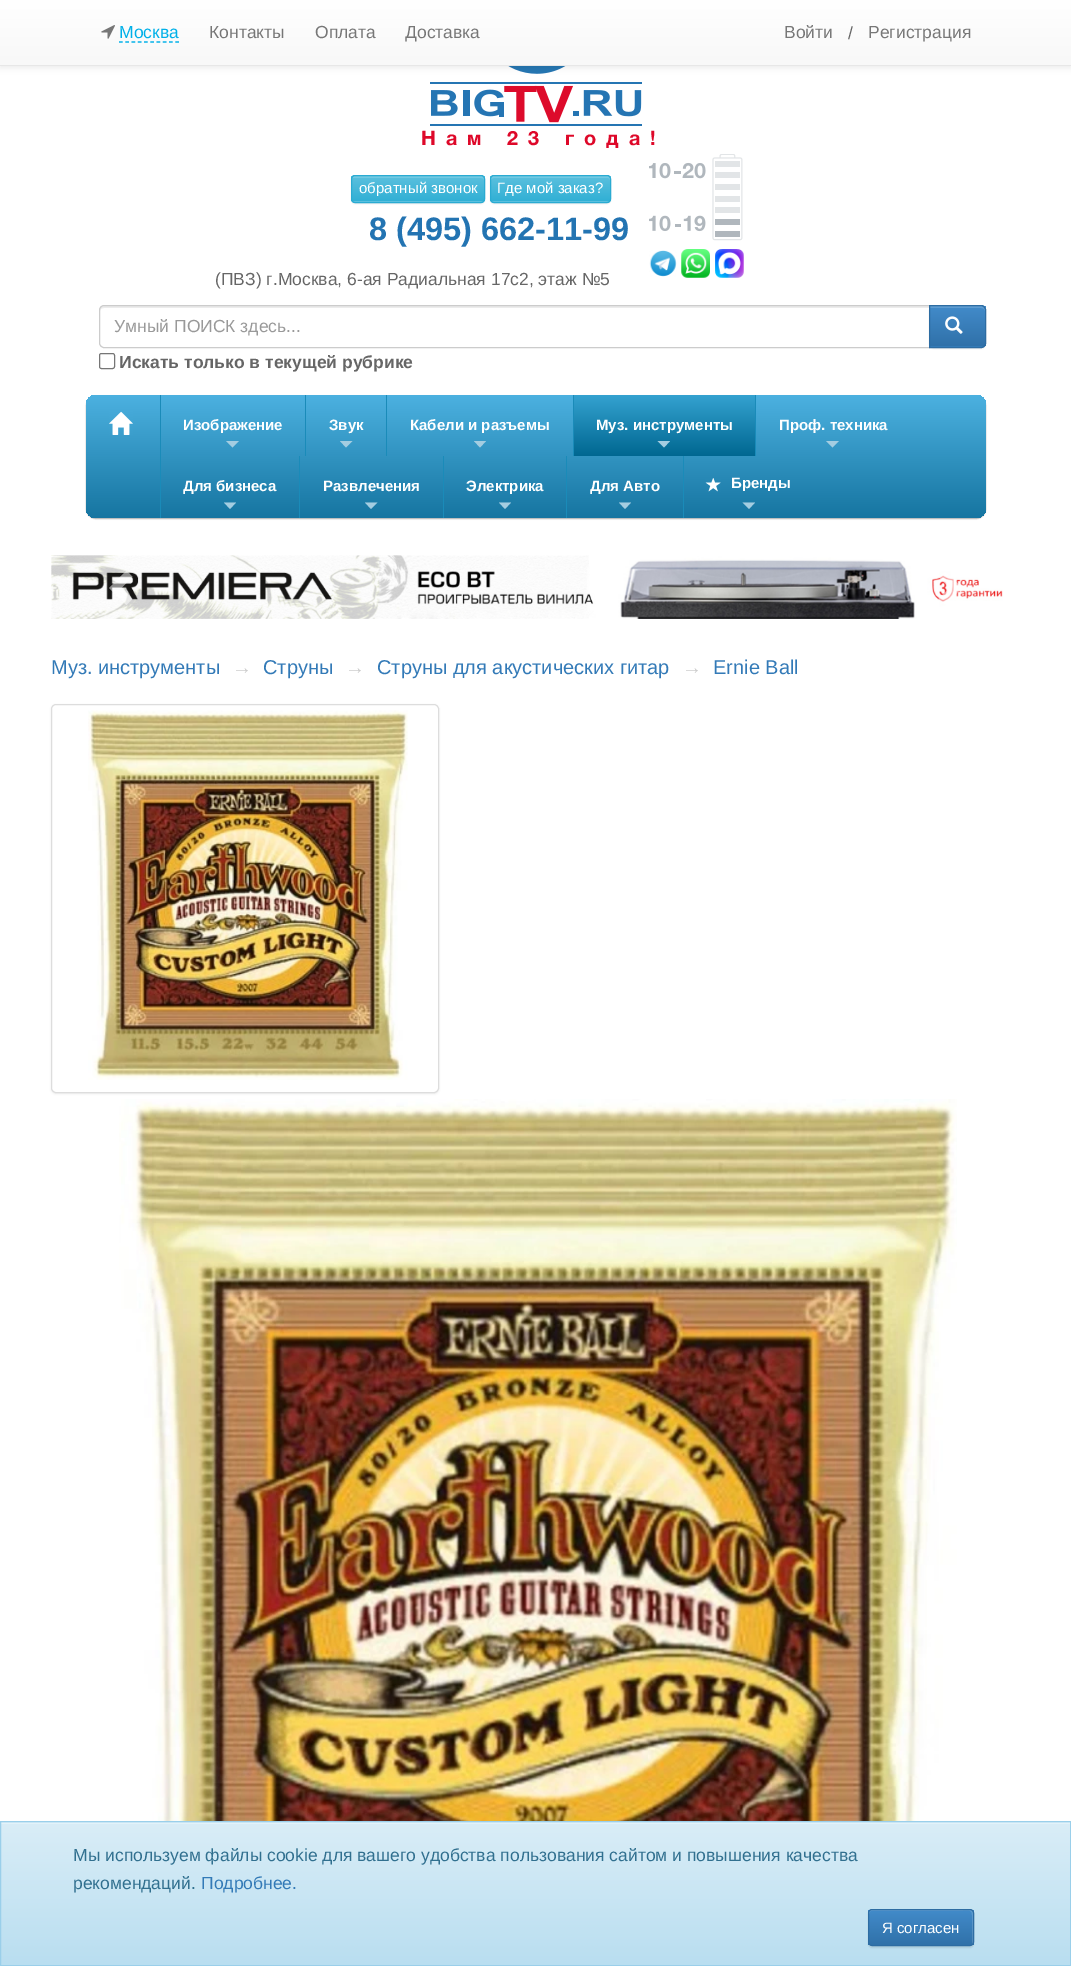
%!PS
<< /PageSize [1071 1966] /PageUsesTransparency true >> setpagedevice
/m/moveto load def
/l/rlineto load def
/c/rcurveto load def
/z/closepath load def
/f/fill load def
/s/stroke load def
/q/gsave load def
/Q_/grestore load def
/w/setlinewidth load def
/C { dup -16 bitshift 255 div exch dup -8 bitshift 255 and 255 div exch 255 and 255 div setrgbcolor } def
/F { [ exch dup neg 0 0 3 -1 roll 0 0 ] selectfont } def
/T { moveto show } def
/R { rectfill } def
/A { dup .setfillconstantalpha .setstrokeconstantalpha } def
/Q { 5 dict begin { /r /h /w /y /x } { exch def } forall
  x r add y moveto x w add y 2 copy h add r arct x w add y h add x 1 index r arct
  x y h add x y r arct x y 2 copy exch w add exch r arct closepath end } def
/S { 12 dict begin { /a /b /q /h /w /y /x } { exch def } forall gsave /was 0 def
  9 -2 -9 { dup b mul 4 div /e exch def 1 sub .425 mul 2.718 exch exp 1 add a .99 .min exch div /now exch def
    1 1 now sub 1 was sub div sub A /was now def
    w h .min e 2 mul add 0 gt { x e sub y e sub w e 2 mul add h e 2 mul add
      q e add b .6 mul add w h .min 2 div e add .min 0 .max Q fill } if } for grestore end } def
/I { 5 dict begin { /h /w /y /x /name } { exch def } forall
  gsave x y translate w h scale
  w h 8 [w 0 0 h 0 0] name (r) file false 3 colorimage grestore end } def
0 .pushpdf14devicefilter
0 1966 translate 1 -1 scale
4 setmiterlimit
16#FFFFFF C
0 0 1071 1966 R
(2.rgb) 430 66 212 60 I
16#000000 C
0 1 1071 67 0 3 .07 S
q 0 0 m 1071 0 l 0 65 l -1071 0 l z clip newpath
<< /ShadingType 2 /ColorSpace /DeviceRGB /Coords [536 0 536 65] /Extend [true true] /Function << /FunctionType 2 /Domain [0 1] /C0 [1 1 1] /C1 [.973 .973 .973] /N 1 >> >> shfill Q_
16#E7E7E7 C
0 65 1071 1 R
(1.rgb) 101 25 14 14 I
/LiberationSans-Regular 17.5 F
16#00B0E8 C
(Москва) 119 38 T
1.2 w
[3.75 2.5] 0 setdash
119 42 m 60 0 l s
16#777777 C
(Контакты) 209 38 T
(Оплата) 315 38 T
(Доставка) 405 38 T
(Войти) 784 38 T
16#666666 C
(/) 848 39 T
16#777777 C
(Регистрация) 868 38 T
/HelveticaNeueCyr-Bold 20 F
16#DE0829 C
421 145 m 10 0 (Нам 23 года!) ashow
16#000000 C
351 176 134 28 4 .5 .07 S
16#5BC0DE C
351 175 134 28 4 Q f
q
351 175 134 28 4 Q clip newpath
q 351 176 m 134 0 l 0 25 l -134 0 l z clip newpath
<< /ShadingType 2 /ColorSpace /DeviceRGB /Coords [418 176 418 201] /Extend [true true] /Function << /FunctionType 2 /Domain [0 1] /C0 [.357 .753 .871] /C1 [.192 .69 .835] /N 1 >> >> shfill Q_
Q_
0.15 A
16#FFFFFF C
355 178 m 126 0 l 2 0 3 1 3 2 c 0 -2 l 0 -1 -1 -2 -2 -2 c -126 0 l -2 0 -3 1 -3 2 c z f
1 A
16#2AABD2 C
1 w
[] 0 setdash
351.5 175.5 133 27 3.5 Q s
/LiberationSans-Regular 15 F
16#FFFFFF C
(обратный звонок) 359 193 T
16#000000 C
490 176 121 28 4 .5 .07 S
16#5BC0DE C
490 175 121 28 4 Q f
q
490 175 121 28 4 Q clip newpath
q 490 176 m 121 0 l 0 25 l -121 0 l z clip newpath
<< /ShadingType 2 /ColorSpace /DeviceRGB /Coords [551 176 551 201] /Extend [true true] /Function << /FunctionType 2 /Domain [0 1] /C0 [.357 .753 .871] /C1 [.192 .69 .835] /N 1 >> >> shfill Q_
Q_
0.15 A
16#FFFFFF C
494 178 m 114 0 l 1 0 2 1 2 2 c 0 -2 l 0 -1 -1 -2 -2 -2 c -114 0 l -2 0 -3 1 -3 2 c 0 2 l 0 -1 1 -2 3 -2 c z f
1 A
16#2AABD2 C
490.5 175.5 120 27 3.5 Q s
16#FFFFFF C
(Где мой заказ?) 497 193 T
/LiberationSans-Bold 32.5 F
16#2374B2 C
(8 \(495\) 662-11-99) 369 240 T
/LiberationSans-Regular 17.5 F
16#666666 C
(\(ПВЗ\) г.Москва, 6-ая Радиальная 17с2, этаж №5) 215 285 T
(3.rgb) 649 154 94 87 I
(4.rgb) 649 250 28 27 I
(5.rgb) 681 249 29 29 I
(6.rgb) 715 249 29 29 I
16#ECECEC C
104 308 m 825 0 l 0 -2 l -825 0 l -3 0 -4 2 -4 5 c 0 -2 2 -3 4 -3 c z f
16#CCCCCC C
104 305.5 m 825.5 0 l 0 42 l -825.5 0 l -2.5 0 -4.5 -2 -4.5 -4.5 c 0 -33 l 0 -2.5 2 -4.5 4.5 -4.5 c z s
16#999999 C
(Умный ПОИСК здесь...) 114 332 T
16#000000 C
929 306 57 43 5 .5 .07 S
16#337AB7 C
929 305 m 52 0 l 3 0 5 2 5 5 c 0 33 l 0 3 -2 5 -5 5 c -52 0 l z f
q
929 305 m 52 0 l 3 0 5 2 5 5 c 0 33 l 0 3 -2 5 -5 5 c -52 0 l z clip newpath
q 930 306 m 56 0 l 0 40 l -56 0 l z clip newpath
<< /ShadingType 2 /ColorSpace /DeviceRGB /Coords [958 306 958 346] /Extend [true true] /Function << /FunctionType 2 /Domain [0 1] /C0 [.259 .545 .792] /C1 [.188 .443 .663] /N 1 >> >> shfill Q_
Q_
16#5E9CD1 C
930 308 m 51 0 l 2 0 4 1 4 3 c 0 -1 l 0 -2 -2 -4 -4 -4 c -51 0 l z f
16#2D6CA2 C
929.5 305.5 m 51.5 0 l 2.5 0 4.5 2 4.5 4.5 c 0 33 l 0 2.5 -2 4.5 -4.5 4.5 c -51.5 0 l z s
(7.rgb) 945 316 18 18 I
16#767676 C
99.5 353.5 15 15 2 Q s
/LiberationSans-Bold 17.5 F
16#666666 C
(Искать только в текущей рубрике) 119 368 T
16#000000 C
86 396 900 123 10 .5 .3 S
q 86 395 900 123 10 Q clip newpath
<< /ShadingType 2 /ColorSpace /DeviceRGB /Coords [536 395 536 518] /Extend [true true] /Function << /FunctionType 2 /Domain [0 1] /C0 [.298 .694 .878] /C1 [.086 .459 .631] /N 1 >> >> shfill Q_
(8.rgb) 109 411 24 24 I
16#1A8BB9 C
160 395 1 123 R
/LiberationSans-Bold 15 F
16#FFFFFF C
(Изображение) 183 430 T
16#A4CDE1 C
226 441 m 13 0 l -6.5 6.5 l z f
16#1A8BB9 C
305 395 1 61 R
16#FFFFFF C
(Звук) 329 430 T
16#A4CDE1 C
340 441 m 12.5 0 l -6.5 6.5 l z f
16#1A8BB9 C
386 395 1 61 R
16#FFFFFF C
(Кабели и разъемы) 410 430 T
16#A4CDE1 C
474 441 m 12 0 l -6 6.5 l z f
16#1A8BB9 C
573 395 1 61 R
q 574 395 m 181 0 l 0 61 l -181 0 l z clip newpath
<< /ShadingType 2 /ColorSpace /DeviceRGB /Coords [664 395 664 456] /Extend [true true] /Function << /FunctionType 2 /Domain [0 1] /C0 [.204 .635 .816] /C1 [0 .404 .569] /N 1 >> >> shfill Q_
16#FFFFFF C
(Муз. инструменты) 596 430 T
16#A4CDE1 C
657.5 441 m 12.5 0 l -6 6.5 l z f
16#1A8BB9 C
755 395 1 61 R
16#FFFFFF C
(Проф. техника) 779 430 T
16#A4CDE1 C
826 441 m 13 0 l -6.5 6.5 l z f
16#FFFFFF C
(Для бизнеса) 183 491 T
16#A4CDE1 C
224 502.5 m 12 0 l -6 6.5 l z f
16#1A8BB9 C
299 456 1 62 R
16#FFFFFF C
(Развлечения) 323 491 T
16#A4CDE1 C
365 502.5 m 12.5 0 l -6.5 6.5 l z f
16#1A8BB9 C
443 456 1 62 R
16#FFFFFF C
(Электрика) 466 491 T
16#A4CDE1 C
499 502.5 m 12 0 l -6 6.5 l z f
16#1A8BB9 C
566 456 1 62 R
16#FFFFFF C
(Для Авто) 590 491 T
16#A4CDE1 C
619 502.5 m 12 0 l -6 6.5 l z f
16#1A8BB9 C
683 456 1 62 R
(9.rgb) 705 478 16 14 I
16#FFFFFF C
(Бренды) 731 488 T
16#A4CDE1 C
742.5 502.5 m 12.5 0 l -6 6.5 l z f
(10.rgb) 51 555 952 64 I
0.5 A
16#FFFFFF C
132.5 577 m -11 11 l 11 11 l -6 6 l -17.5 -17 l 17.5 -17.5 l z f
962 588 m -17 17 l -6.5 -6 l 11 -11 l -11 -11 l 6.5 -6.5 l z f
/LiberationSans-Regular 20 F
1 A
16#337AB7 C
(Муз. инструменты) 51 674 T
16#CCCCCC C
(→) 232 674 T
16#337AB7 C
(Струны) 263 674 T
16#CCCCCC C
(→) 345 674 T
16#337AB7 C
(Струны для акустических гитар) 377 674 T
16#CCCCCC C
(→) 682 674 T
16#337AB7 C
(Ernie Ball) 713 674 T
16#000000 C
51 705 388 389 5 1 .07 S
16#FFFFFF C
51.5 704.5 387 388 4.5 Q q f Q_
16#DDDDDD C
s
(11.rgb) 88 710 320 370 I
(12.rgb) 119 1099 838 722 I
16#D9EDF7 C
1 1822 1069 1 R
q 1 1824 m 1069 0 l 0 141 l -1069 0 l z clip newpath
<< /ShadingType 2 /ColorSpace /DeviceRGB /Coords [536 1823 536 1965] /Extend [true true] /Function << /FunctionType 2 /Domain [0 1] /C0 [.851 .929 .969] /C1 [.725 .871 .941] /N 1 >> >> shfill Q_
16#E3F2F9 C
1 1823 1069 1 R
16#9ACFEA C
.5 1821.5 1070 144 rectstroke
/LiberationSans-Regular 17.5 F
16#31708F C
(Мы используем файлы cookie для вашего удобства пользования сайтом и повышения качества) 73 1861 T
(рекомендаций.) 73 1889 T
16#337AB7 C
(Подробнее.) 201 1889 T
16#000000 C
868 1910 106 38 4 .5 .07 S
q
868 1909 106 37 4 Q clip newpath
q 868 1910 m 106 0 l 0 35 l -106 0 l z clip newpath
<< /ShadingType 2 /ColorSpace /DeviceRGB /Coords [921 1910 921 1945] /Extend [true true] /Function << /FunctionType 2 /Domain [0 1] /C0 [.259 .545 .792] /C1 [.188 .443 .663] /N 1 >> >> shfill Q_
Q_
0.15 A
16#FFFFFF C
871 1911 m 83 0 l 20 0 18 -4 18 13 c 0 21 l 1 -1 1 -2 1 -3 c 0 -30 l 0 -1 -1 -2 -3 -2 c -98 0 l -2 0 -3 1 -3 2 c 0 2 l 0 -2 1 -3 2 -3 c z f
1 A
16#2D6CA2 C
868.5 1909.5 105 36 3.5 Q s
/LiberationSans-Regular 15 F
16#FFFFFF C
(Я согласен) 882 1933 T
.poppdf14devicefilter showpage
